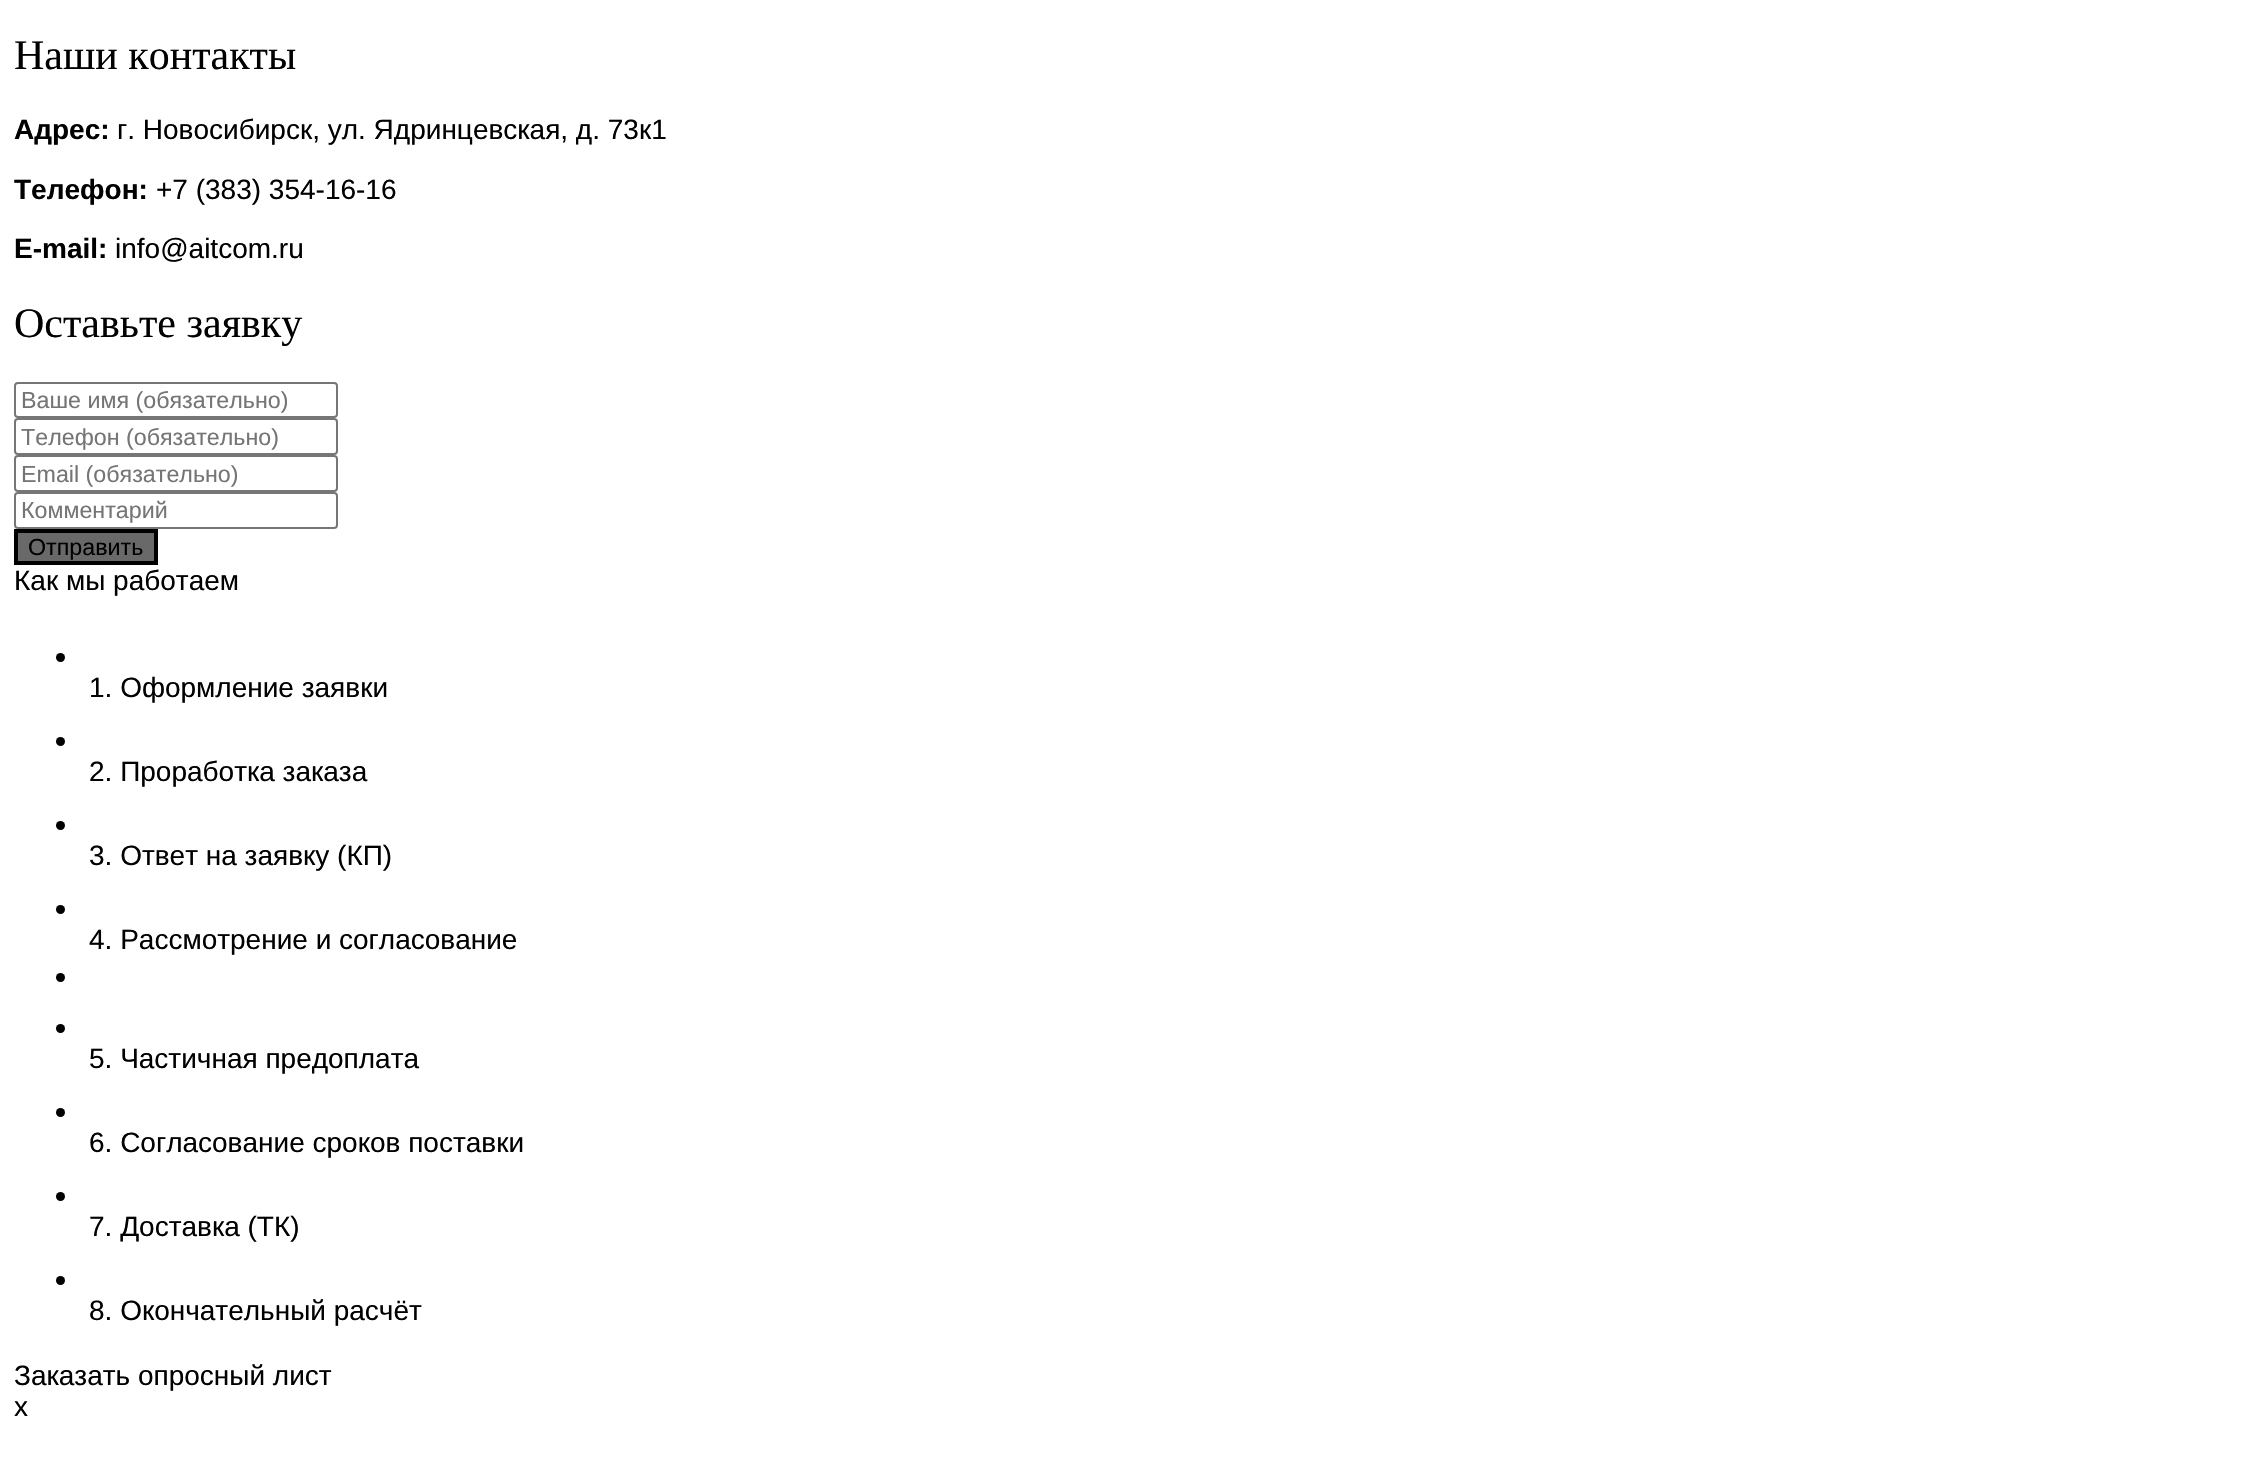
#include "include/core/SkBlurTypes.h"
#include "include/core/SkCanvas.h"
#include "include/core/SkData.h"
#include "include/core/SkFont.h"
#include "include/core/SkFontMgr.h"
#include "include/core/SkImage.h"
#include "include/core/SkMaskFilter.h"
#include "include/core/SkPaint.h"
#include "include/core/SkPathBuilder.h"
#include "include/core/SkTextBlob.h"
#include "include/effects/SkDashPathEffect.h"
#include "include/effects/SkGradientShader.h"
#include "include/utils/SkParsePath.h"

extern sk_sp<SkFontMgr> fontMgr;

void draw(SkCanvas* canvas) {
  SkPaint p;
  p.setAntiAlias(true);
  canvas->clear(SK_ColorWHITE);
  p.setStyle(SkPaint::kStroke_Style);
  p.setStrokeWidth(2);
  p.setColor(SkColorSetRGB(118, 118, 118));
  canvas->drawRoundRect(SkRect::MakeLTRB(15, 383, 337, 417), 3, 3, p);
  canvas->drawRoundRect(SkRect::MakeLTRB(15, 419, 337, 454), 3, 3, p);
  canvas->drawRoundRect(SkRect::MakeLTRB(15, 456, 337, 491), 3, 3, p);
  canvas->drawRoundRect(SkRect::MakeLTRB(15, 493, 337, 528), 3, 3, p);
  p.setStyle(SkPaint::kFill_Style);
  p.setColor(SkColorSetRGB(105, 105, 105));
  canvas->drawRect(SkRect::MakeLTRB(16, 531, 156, 563), p);
  p.setStyle(SkPaint::kStroke_Style);
  p.setStrokeWidth(4);
  p.setColor(SK_ColorBLACK);
  canvas->drawRect(SkRect::MakeLTRB(16, 531, 156, 563), p);
  p.setStyle(SkPaint::kFill_Style);
  canvas->drawCircle(60.5f, 657.5f, 4.5f, p);
  canvas->drawCircle(60.5f, 741.5f, 4.5f, p);
  canvas->drawCircle(60.5f, 825.5f, 4.5f, p);
  canvas->drawCircle(60.5f, 909.5f, 4.5f, p);
  canvas->drawCircle(60.5f, 977.5f, 4.5f, p);
  canvas->drawCircle(60.5f, 1028.5f, 4.5f, p);
  canvas->drawCircle(60.5f, 1112.5f, 4.5f, p);
  canvas->drawCircle(60.5f, 1196.5f, 4.5f, p);
  canvas->drawCircle(60.5f, 1280.5f, 4.5f, p);
  SkFont font1(fontMgr->matchFamilyStyle("Liberation Serif", SkFontStyle::Normal()), 42);
  font1.setSubpixel(true);
  canvas->drawString("Наши контакты", 14, 69, font1, p);
  SkFont font2(fontMgr->matchFamilyStyle("Liberation Sans", SkFontStyle::Bold()), 28);
  font2.setSubpixel(true);
  canvas->drawString("Адрес:", 14, 139, font2, p);
  SkFont font3(fontMgr->matchFamilyStyle("Liberation Sans", SkFontStyle::Normal()), 28);
  font3.setSubpixel(true);
  canvas->drawString("г. Новосибирск, ул. Ядринцевская, д. 73к1", 117, 139, font3, p);
  canvas->drawString("Телефон:", 14, 199, font2, p);
  canvas->drawString("+7 (383) 354-16-16", 156, 199, font3, p);
  canvas->drawString("E-mail:", 14, 258, font2, p);
  canvas->drawString("info@aitcom.ru", 115, 258, font3, p);
  canvas->drawString("Оставьте заявку", 14, 337, font1, p);
  SkFont font4(fontMgr->matchFamilyStyle("Liberation Sans", SkFontStyle::Normal()), 23.25f);
  font4.setSubpixel(true);
  p.setColor(SkColorSetRGB(117, 117, 117));
  canvas->drawString("Ваше имя (обязательно)", 21, 408, font4, p);
  canvas->drawString("Телефон (обязательно)", 21, 445, font4, p);
  canvas->drawString("Email (обязательно)", 21, 482, font4, p);
  canvas->drawString("Комментарий", 21, 518, font4, p);
  p.setColor(SK_ColorBLACK);
  canvas->drawString("Отправить", 28, 555, font4, p);
  canvas->drawString("Как мы работаем", 14, 590, font3, p);
  canvas->drawString("1. Оформление заявки", 89, 697, font3, p);
  canvas->drawString("2. Проработка заказа", 89, 781, font3, p);
  canvas->drawString("3. Ответ на заявку (КП)", 89, 865, font3, p);
  canvas->drawString("4. Рассмотрение и согласование", 89, 949, font3, p);
  canvas->drawString("5. Частичная предоплата", 89, 1068, font3, p);
  canvas->drawString("6. Согласование сроков поставки", 89, 1152, font3, p);
  canvas->drawString("7. Доставка (ТК)", 89, 1236, font3, p);
  canvas->drawString("8. Окончательный расчёт", 89, 1320, font3, p);
  canvas->drawString("Заказать опросный лист", 14, 1385, font3, p);
  canvas->drawString("x", 14, 1416, font3, p);
}
